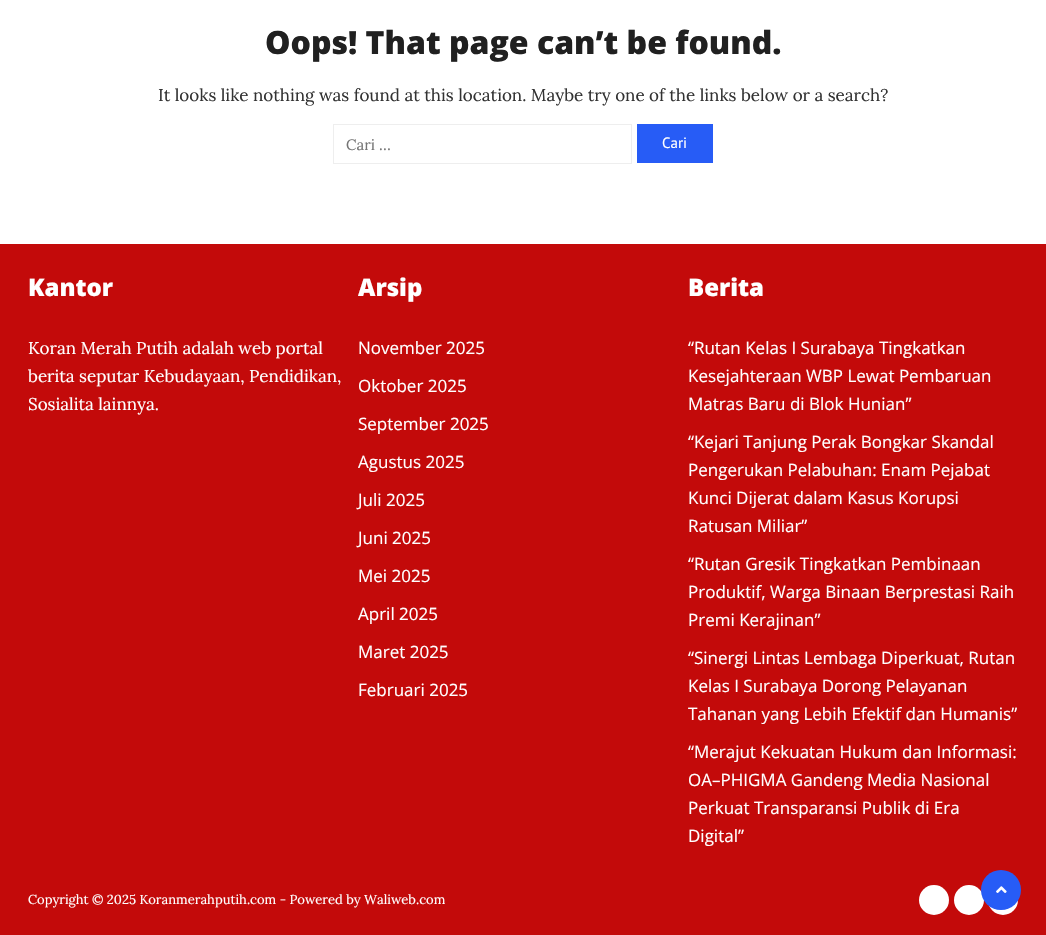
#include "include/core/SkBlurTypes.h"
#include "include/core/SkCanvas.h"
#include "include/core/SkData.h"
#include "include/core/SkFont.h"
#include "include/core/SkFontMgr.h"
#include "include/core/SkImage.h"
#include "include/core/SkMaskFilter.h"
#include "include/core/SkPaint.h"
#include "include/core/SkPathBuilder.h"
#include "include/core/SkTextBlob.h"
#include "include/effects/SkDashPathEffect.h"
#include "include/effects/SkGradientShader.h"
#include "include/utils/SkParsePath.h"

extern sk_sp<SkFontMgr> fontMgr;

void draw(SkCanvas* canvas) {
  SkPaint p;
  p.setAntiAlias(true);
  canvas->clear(SK_ColorWHITE);
  p.setStyle(SkPaint::kStroke_Style);
  p.setStrokeWidth(1);
  p.setColor(SkColorSetRGB(238, 238, 238));
  canvas->drawRect(SkRect::MakeLTRB(333.5f, 124.5f, 631.5f, 163.5f), p);
  p.setStyle(SkPaint::kFill_Style);
  p.setColor(SkColorSetRGB(39, 92, 246));
  canvas->drawRect(SkRect::MakeLTRB(637, 124, 713, 163), p);
  p.setColor(SkColorSetRGB(195, 10, 10));
  canvas->drawRect(SkRect::MakeLTRB(0, 244, 1046, 935), p);
  p.setColor(SK_ColorWHITE);
  canvas->drawCircle(934, 900, 15, p);
  canvas->drawCircle(969, 900, 15, p);
  canvas->drawCircle(1003, 900, 15, p);
  p.setColor(SkColorSetRGB(39, 92, 246));
  canvas->drawCircle(1001, 890, 20, p);
  canvas->drawImageRect(SkImages::DeferredFromEncodedData(SkData::MakeFromFileName("images/1.png")), SkRect::MakeLTRB(996, 886, 1007, 893), SkSamplingOptions());
  SkFont font1(fontMgr->matchFamilyStyle("Open Sans", SkFontStyle(800, SkFontStyle::kNormal_Width, SkFontStyle::kUpright_Slant)), 32);
  font1.setSubpixel(true);
  p.setColor(SkColorSetRGB(32, 32, 32));
  canvas->drawString("Oops! That page can’t be found.", 265, 54, font1, p);
  SkFont font2(fontMgr->matchFamilyStyle("Lora", SkFontStyle::Normal()), 17);
  font2.setSubpixel(true);
  p.setColor(SkColorSetRGB(51, 51, 51));
  canvas->drawString("It looks like nothing was found at this location. Maybe try one of the links below or a search?", 158, 101, font2, p);
  SkFont font3(fontMgr->matchFamilyStyle("Lora", SkFontStyle::Normal()), 15);
  font3.setSubpixel(true);
  p.setColor(SkColorSetRGB(117, 117, 117));
  canvas->drawString("Cari …", 346, 150, font3, p);
  SkFont font4(fontMgr->matchFamilyStyle("PT Sans", SkFontStyle::Normal()), 15);
  font4.setSubpixel(true);
  p.setColor(SK_ColorWHITE);
  canvas->drawString("Cari", 662, 148, font4, p);
  SkFont font5(fontMgr->matchFamilyStyle("Open Sans", SkFontStyle(800, SkFontStyle::kNormal_Width, SkFontStyle::kUpright_Slant)), 24);
  font5.setSubpixel(true);
  canvas->drawString("Kantor", 28, 296, font5, p);
  canvas->drawString("Koran Merah Putih adalah web portal", 28, 354, font2, p);
  canvas->drawString("berita seputar Kebudayaan, Pendidikan,", 28, 382, font2, p);
  canvas->drawString("Sosialita lainnya.", 28, 410, font2, p);
  canvas->drawString("Arsip", 358, 296, font5, p);
  SkFont font6(fontMgr->matchFamilyStyle("Open Sans", SkFontStyle::Normal()), 17);
  font6.setSubpixel(true);
  canvas->drawString("November 2025", 358, 354, font6, p);
  canvas->drawString("Oktober 2025", 358, 392, font6, p);
  canvas->drawString("September 2025", 358, 430, font6, p);
  canvas->drawString("Agustus 2025", 358, 468, font6, p);
  canvas->drawString("Juli 2025", 358, 506, font6, p);
  canvas->drawString("Juni 2025", 358, 544, font6, p);
  canvas->drawString("Mei 2025", 358, 582, font6, p);
  canvas->drawString("April 2025", 358, 620, font6, p);
  canvas->drawString("Maret 2025", 358, 658, font6, p);
  canvas->drawString("Februari 2025", 358, 696, font6, p);
  canvas->drawString("Berita", 688, 296, font5, p);
  canvas->drawString("“Rutan Kelas I Surabaya Tingkatkan", 688, 354, font6, p);
  canvas->drawString("Kesejahteraan WBP Lewat Pembaruan", 688, 382, font6, p);
  canvas->drawString("Matras Baru di Blok Hunian”", 688, 410, font6, p);
  canvas->drawString("“Kejari Tanjung Perak Bongkar Skandal", 688, 448, font6, p);
  canvas->drawString("Pengerukan Pelabuhan: Enam Pejabat", 688, 476, font6, p);
  canvas->drawString("Kunci Dijerat dalam Kasus Korupsi", 688, 504, font6, p);
  canvas->drawString("Ratusan Miliar”", 688, 532, font6, p);
  canvas->drawString("“Rutan Gresik Tingkatkan Pembinaan", 688, 570, font6, p);
  canvas->drawString("Produktif, Warga Binaan Berprestasi Raih", 688, 598, font6, p);
  canvas->drawString("Premi Kerajinan”", 688, 626, font6, p);
  canvas->drawString("“Sinergi Lintas Lembaga Diperkuat, Rutan", 688, 664, font6, p);
  canvas->drawString("Kelas I Surabaya Dorong Pelayanan", 688, 692, font6, p);
  canvas->drawString("Tahanan yang Lebih Efektif dan Humanis”", 688, 720, font6, p);
  canvas->drawString("“Merajut Kekuatan Hukum dan Informasi:", 688, 758, font6, p);
  canvas->drawString("OA–PHIGMA Gandeng Media Nasional", 688, 786, font6, p);
  canvas->drawString("Perkuat Transparansi Publik di Era", 688, 814, font6, p);
  canvas->drawString("Digital”", 688, 842, font6, p);
  SkFont font7(fontMgr->matchFamilyStyle("Lora", SkFontStyle::Normal()), 13);
  font7.setSubpixel(true);
  canvas->drawString("Copyright © 2025 Koranmerahputih.com - Powered by Waliweb.com", 28, 904, font7, p);
}
